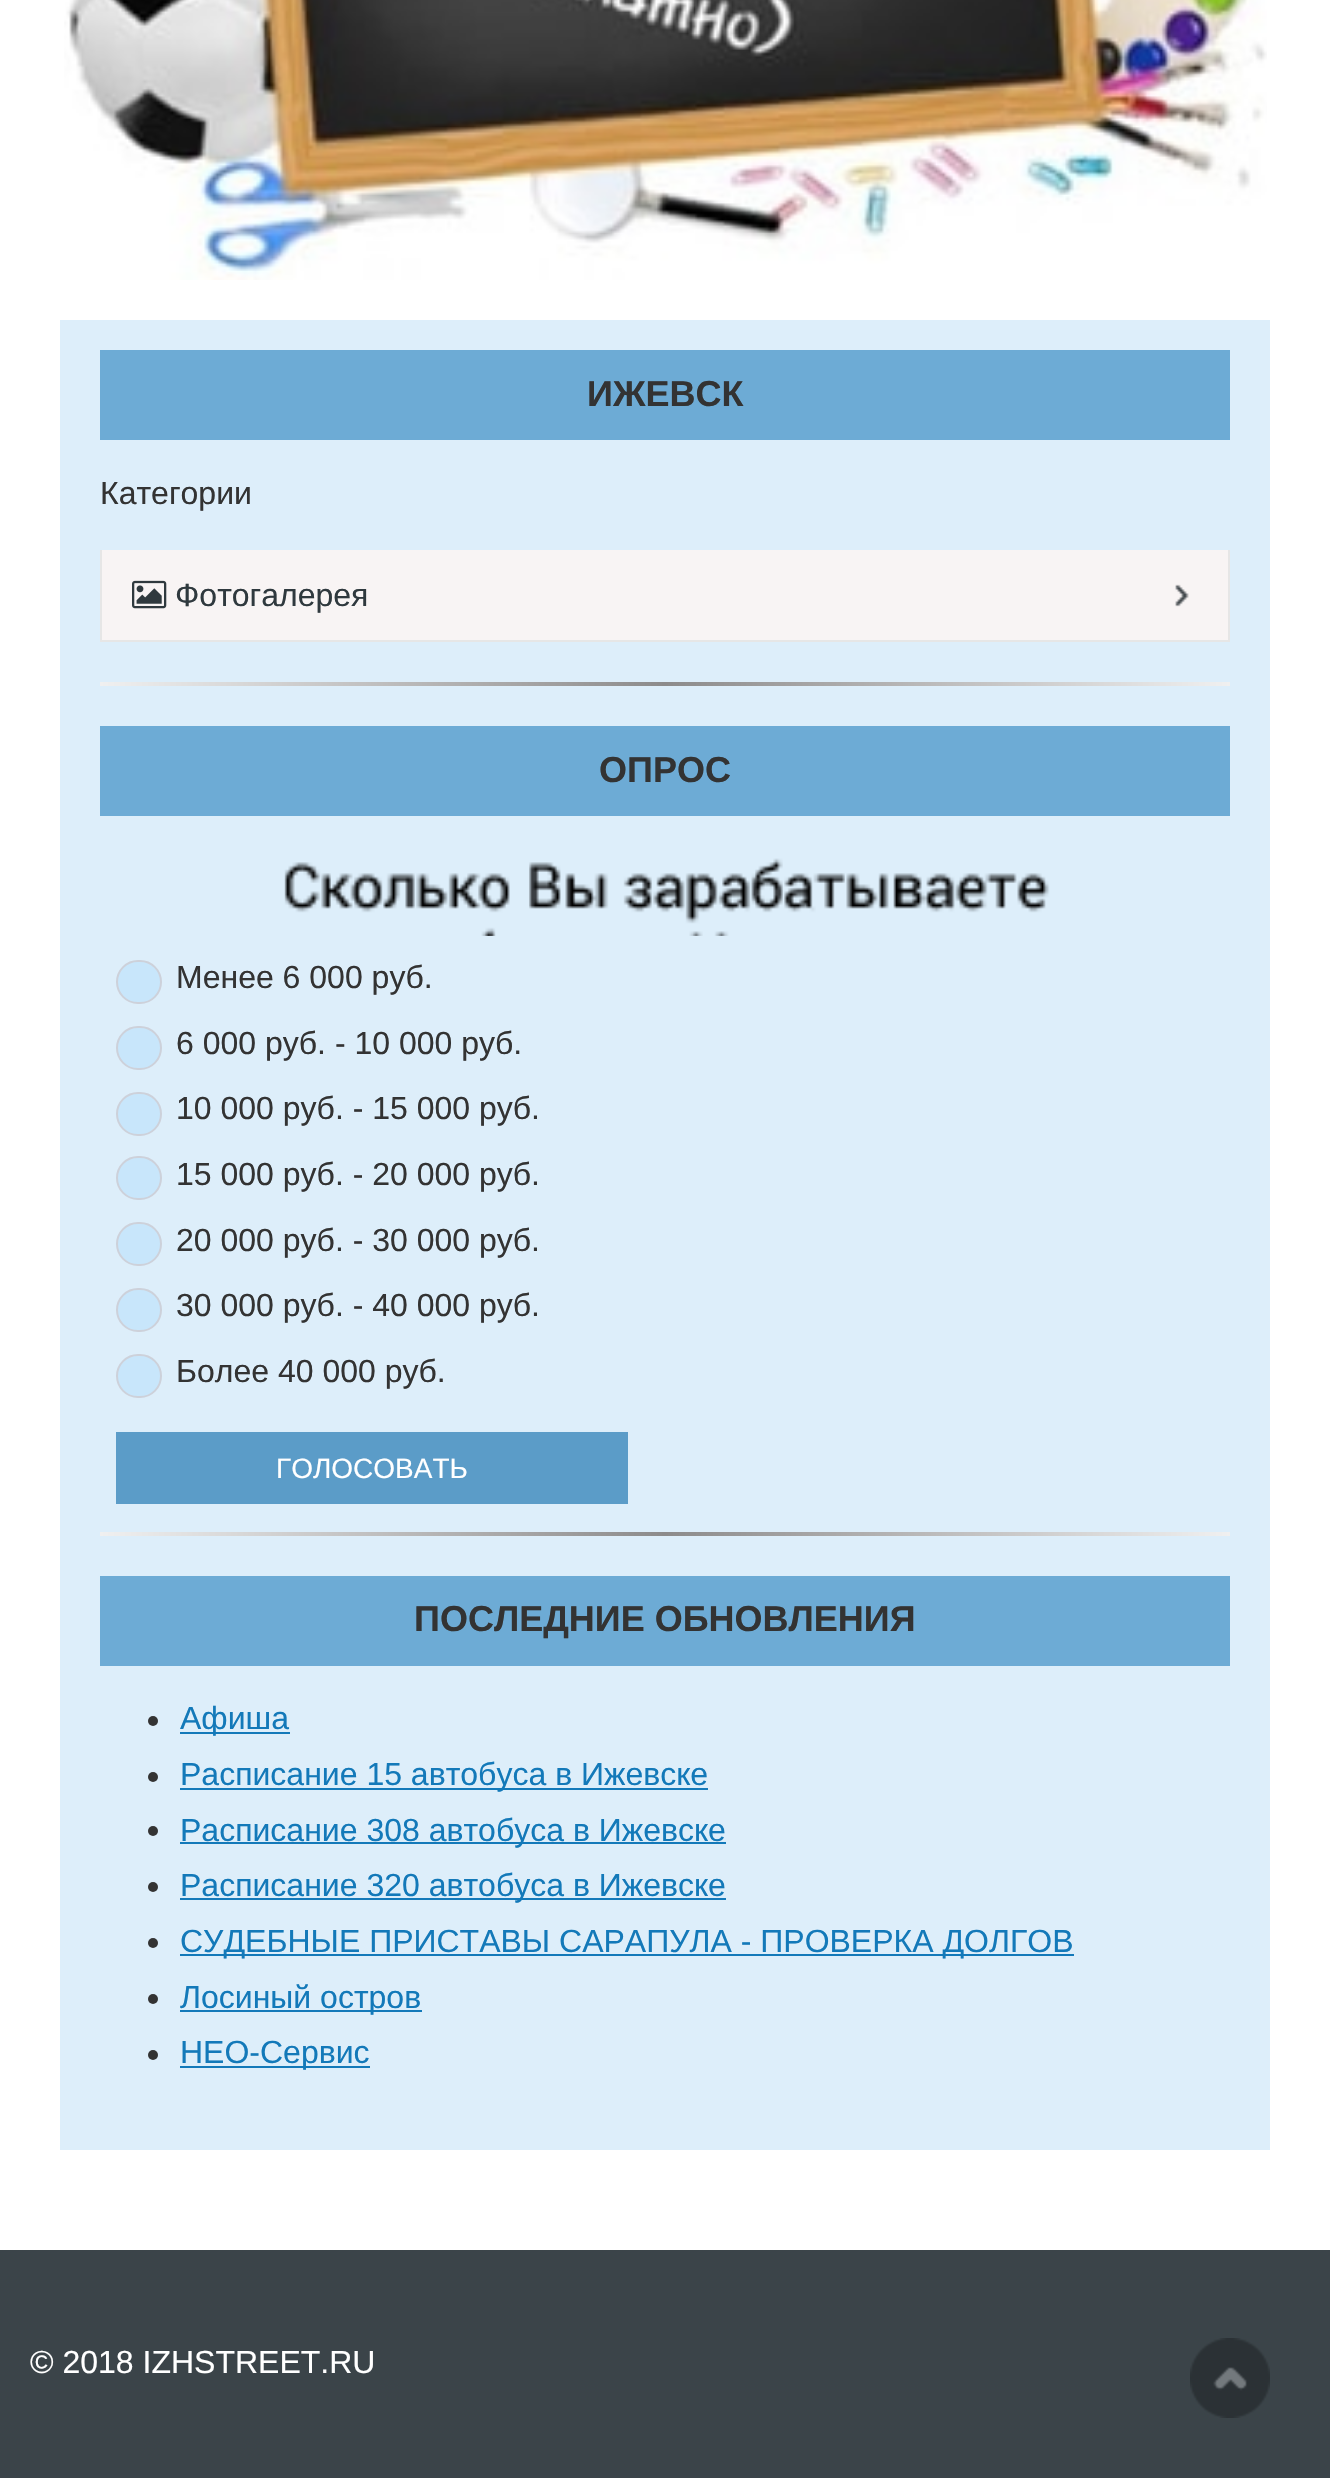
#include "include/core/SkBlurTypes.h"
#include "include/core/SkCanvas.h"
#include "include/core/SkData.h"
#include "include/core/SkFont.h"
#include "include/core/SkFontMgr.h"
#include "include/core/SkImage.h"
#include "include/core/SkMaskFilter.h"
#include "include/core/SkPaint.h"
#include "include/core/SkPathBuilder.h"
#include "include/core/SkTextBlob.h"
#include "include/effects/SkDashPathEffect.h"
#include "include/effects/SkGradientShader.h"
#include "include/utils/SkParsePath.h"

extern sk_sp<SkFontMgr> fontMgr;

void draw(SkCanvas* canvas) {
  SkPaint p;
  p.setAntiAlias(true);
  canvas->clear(SK_ColorWHITE);
  canvas->drawImageRect(SkImages::DeferredFromEncodedData(SkData::MakeFromFileName("images/1.png")), SkRect::MakeLTRB(64, 0, 1267, 280), SkSamplingOptions());
  p.setColor(SkColorSetRGB(221, 238, 250));
  canvas->drawRect(SkRect::MakeLTRB(60, 320, 1270, 2150), p);
  p.setColor(SkColorSetRGB(109, 171, 213));
  canvas->drawRect(SkRect::MakeLTRB(100, 350, 1230, 440), p);
  p.setColor(SkColorSetRGB(248, 244, 244));
  canvas->drawRect(SkRect::MakeLTRB(102, 550, 1228, 640), p);
  canvas->drawImageRect(SkImages::DeferredFromEncodedData(SkData::MakeFromFileName("images/2.png")), SkRect::MakeLTRB(1175, 584, 1189, 607), SkSamplingOptions());
  p.setColor(SkColorSetRGB(230, 230, 230));
  canvas->drawRect(SkRect::MakeLTRB(1228, 550, 1230, 642), p);
  canvas->drawRect(SkRect::MakeLTRB(100, 640, 1230, 642), p);
  canvas->drawRect(SkRect::MakeLTRB(100, 550, 102, 642), p);
  canvas->drawImageRect(SkImages::DeferredFromEncodedData(SkData::MakeFromFileName("images/3.png")), SkRect::MakeLTRB(132, 580, 167, 609), SkSamplingOptions());
  {
    const SkColor colors[] = {SkColorSetRGB(240, 240, 240), SkColorSetRGB(140, 139, 139), SkColorSetRGB(240, 240, 240)};
    const float stops[] = {0, 0.5f, 1};
    const SkPoint ends[] = {{100, 684}, {1230, 684}};
    p.setShader(SkGradientShader::MakeLinear(ends, colors, stops, 3, SkTileMode::kClamp));
    p.setAlpha(255);
  }
  canvas->drawRect(SkRect::MakeLTRB(100, 682, 1230, 686), p);
  p.setShader(nullptr);
  p.setColor(SkColorSetRGB(109, 171, 213));
  canvas->drawRect(SkRect::MakeLTRB(100, 726, 1230, 816), p);
  canvas->drawImageRect(SkImages::DeferredFromEncodedData(SkData::MakeFromFileName("images/4.png")), SkRect::MakeLTRB(284, 858, 1050, 936), SkSamplingOptions());
  p.setColor(SkColorSetRGB(200, 230, 251));
  canvas->drawRoundRect(SkRect::MakeLTRB(117, 961, 161, 1003), 21, 21, p);
  p.setStyle(SkPaint::kStroke_Style);
  p.setStrokeWidth(2);
  p.setColor(SkColorSetRGB(205, 209, 218));
  canvas->drawRoundRect(SkRect::MakeLTRB(117, 961, 161, 1003), 21, 21, p);
  p.setStyle(SkPaint::kFill_Style);
  p.setColor(SkColorSetRGB(200, 230, 251));
  canvas->drawRoundRect(SkRect::MakeLTRB(117, 1027, 161, 1069), 21, 21, p);
  p.setStyle(SkPaint::kStroke_Style);
  p.setColor(SkColorSetRGB(205, 209, 218));
  canvas->drawRoundRect(SkRect::MakeLTRB(117, 1027, 161, 1069), 21, 21, p);
  p.setStyle(SkPaint::kFill_Style);
  p.setColor(SkColorSetRGB(200, 230, 251));
  canvas->drawRoundRect(SkRect::MakeLTRB(117, 1093, 161, 1135), 21, 21, p);
  p.setStyle(SkPaint::kStroke_Style);
  p.setColor(SkColorSetRGB(205, 209, 218));
  canvas->drawRoundRect(SkRect::MakeLTRB(117, 1093, 161, 1135), 21, 21, p);
  p.setStyle(SkPaint::kFill_Style);
  p.setColor(SkColorSetRGB(200, 230, 251));
  canvas->drawRoundRect(SkRect::MakeLTRB(117, 1157, 161, 1199), 21, 21, p);
  p.setStyle(SkPaint::kStroke_Style);
  p.setColor(SkColorSetRGB(205, 209, 218));
  canvas->drawRoundRect(SkRect::MakeLTRB(117, 1157, 161, 1199), 21, 21, p);
  p.setStyle(SkPaint::kFill_Style);
  p.setColor(SkColorSetRGB(200, 230, 251));
  canvas->drawRoundRect(SkRect::MakeLTRB(117, 1223, 161, 1265), 21, 21, p);
  p.setStyle(SkPaint::kStroke_Style);
  p.setColor(SkColorSetRGB(205, 209, 218));
  canvas->drawRoundRect(SkRect::MakeLTRB(117, 1223, 161, 1265), 21, 21, p);
  p.setStyle(SkPaint::kFill_Style);
  p.setColor(SkColorSetRGB(200, 230, 251));
  canvas->drawRoundRect(SkRect::MakeLTRB(117, 1289, 161, 1331), 21, 21, p);
  p.setStyle(SkPaint::kStroke_Style);
  p.setColor(SkColorSetRGB(205, 209, 218));
  canvas->drawRoundRect(SkRect::MakeLTRB(117, 1289, 161, 1331), 21, 21, p);
  p.setStyle(SkPaint::kFill_Style);
  p.setColor(SkColorSetRGB(200, 230, 251));
  canvas->drawRoundRect(SkRect::MakeLTRB(117, 1355, 161, 1397), 21, 21, p);
  p.setStyle(SkPaint::kStroke_Style);
  p.setColor(SkColorSetRGB(205, 209, 218));
  canvas->drawRoundRect(SkRect::MakeLTRB(117, 1355, 161, 1397), 21, 21, p);
  p.setStyle(SkPaint::kFill_Style);
  p.setColor(SkColorSetRGB(91, 156, 200));
  canvas->drawRect(SkRect::MakeLTRB(116, 1432, 628, 1504), p);
  {
    const SkColor colors[] = {SkColorSetRGB(240, 240, 240), SkColorSetRGB(140, 139, 139), SkColorSetRGB(240, 240, 240)};
    const float stops[] = {0, 0.5f, 1};
    const SkPoint ends[] = {{100, 1534}, {1230, 1534}};
    p.setShader(SkGradientShader::MakeLinear(ends, colors, stops, 3, SkTileMode::kClamp));
    p.setAlpha(255);
  }
  canvas->drawRect(SkRect::MakeLTRB(100, 1532, 1230, 1536), p);
  p.setShader(nullptr);
  p.setColor(SkColorSetRGB(109, 171, 213));
  canvas->drawRect(SkRect::MakeLTRB(100, 1576, 1230, 1666), p);
  p.setColor(SkColorSetRGB(51, 51, 51));
  canvas->drawCircle(153, 1721, 5, p);
  p.setColor(SkColorSetRGB(19, 121, 185));
  canvas->drawRect(SkRect::MakeLTRB(180, 1732, 290, 1734), p);
  p.setColor(SkColorSetRGB(51, 51, 51));
  canvas->drawCircle(153, 1777, 5, p);
  p.setColor(SkColorSetRGB(19, 121, 185));
  canvas->drawRect(SkRect::MakeLTRB(180, 1788, 708, 1790), p);
  p.setColor(SkColorSetRGB(51, 51, 51));
  canvas->drawCircle(153, 1831, 5, p);
  p.setColor(SkColorSetRGB(19, 121, 185));
  canvas->drawRect(SkRect::MakeLTRB(180, 1842, 726, 1844), p);
  p.setColor(SkColorSetRGB(51, 51, 51));
  canvas->drawCircle(153, 1887, 5, p);
  p.setColor(SkColorSetRGB(19, 121, 185));
  canvas->drawRect(SkRect::MakeLTRB(180, 1898, 726, 1900), p);
  p.setColor(SkColorSetRGB(51, 51, 51));
  canvas->drawCircle(153, 1943, 5, p);
  p.setColor(SkColorSetRGB(19, 121, 185));
  canvas->drawRect(SkRect::MakeLTRB(180, 1954, 1074, 1956), p);
  p.setColor(SkColorSetRGB(51, 51, 51));
  canvas->drawCircle(153, 1999, 5, p);
  p.setColor(SkColorSetRGB(19, 121, 185));
  canvas->drawRect(SkRect::MakeLTRB(180, 2010, 422, 2012), p);
  p.setColor(SkColorSetRGB(51, 51, 51));
  canvas->drawCircle(153, 2055, 5, p);
  p.setColor(SkColorSetRGB(19, 121, 185));
  canvas->drawRect(SkRect::MakeLTRB(180, 2066, 370, 2068), p);
  p.setColor(SkColorSetRGB(59, 68, 73));
  canvas->drawRect(SkRect::MakeLTRB(0, 2250, 1330, 2478), p);
  canvas->drawImageRect(SkImages::DeferredFromEncodedData(SkData::MakeFromFileName("images/5.png")), SkRect::MakeLTRB(1190, 2338, 1270, 2418), SkSamplingOptions());
  SkFont font1(fontMgr->matchFamilyStyle("Liberation Sans", SkFontStyle::Bold()), 36);
  font1.setSubpixel(true);
  p.setColor(SkColorSetRGB(51, 51, 51));
  canvas->drawString("ИЖЕВСК", 587, 406, font1, p);
  SkFont font2(fontMgr->matchFamilyStyle("Liberation Sans", SkFontStyle::Normal()), 32);
  font2.setSubpixel(true);
  canvas->drawString("Категории", 100, 504, font2, p);
  p.setColor(SkColorSetRGB(47, 57, 62));
  canvas->drawString("Фотогалерея", 175, 606, font2, p);
  p.setColor(SkColorSetRGB(51, 51, 51));
  canvas->drawString("ОПРОС", 599, 782, font1, p);
  canvas->drawString("Менее 6 000 руб.", 176, 988, font2, p);
  canvas->drawString("6 000 руб. - 10 000 руб.", 176, 1054, font2, p);
  canvas->drawString("10 000 руб. - 15 000 руб.", 176, 1119, font2, p);
  canvas->drawString("15 000 руб. - 20 000 руб.", 176, 1185, font2, p);
  canvas->drawString("20 000 руб. - 30 000 руб.", 176, 1251, font2, p);
  canvas->drawString("30 000 руб. - 40 000 руб.", 176, 1316, font2, p);
  canvas->drawString("Более 40 000 руб.", 176, 1382, font2, p);
  SkFont font3(fontMgr->matchFamilyStyle("Liberation Sans", SkFontStyle::Normal()), 28);
  font3.setSubpixel(true);
  p.setColor(SK_ColorWHITE);
  canvas->drawString("ГОЛОСОВАТЬ", 276, 1478, font3, p);
  p.setColor(SkColorSetRGB(51, 51, 51));
  canvas->drawString("ПОСЛЕДНИЕ ОБНОВЛЕНИЯ", 414, 1631, font1, p);
  p.setColor(SkColorSetRGB(19, 121, 185));
  canvas->drawString("Афиша", 180, 1729, font2, p);
  canvas->drawString("Расписание 15 автобуса в Ижевске", 180, 1785, font2, p);
  canvas->drawString("Расписание 308 автобуса в Ижевске", 180, 1841, font2, p);
  canvas->drawString("Расписание 320 автобуса в Ижевске", 180, 1896, font2, p);
  canvas->drawString("СУДЕБНЫЕ ПРИСТАВЫ САРАПУЛА - ПРОВЕРКА ДОЛГОВ", 180, 1952, font2, p);
  canvas->drawString("Лосиный остров", 180, 2008, font2, p);
  canvas->drawString("НЕО-Сервис", 180, 2063, font2, p);
  p.setColor(SK_ColorWHITE);
  canvas->drawString("© 2018 IZHSTREET.RU", 30, 2373, font2, p);
}
